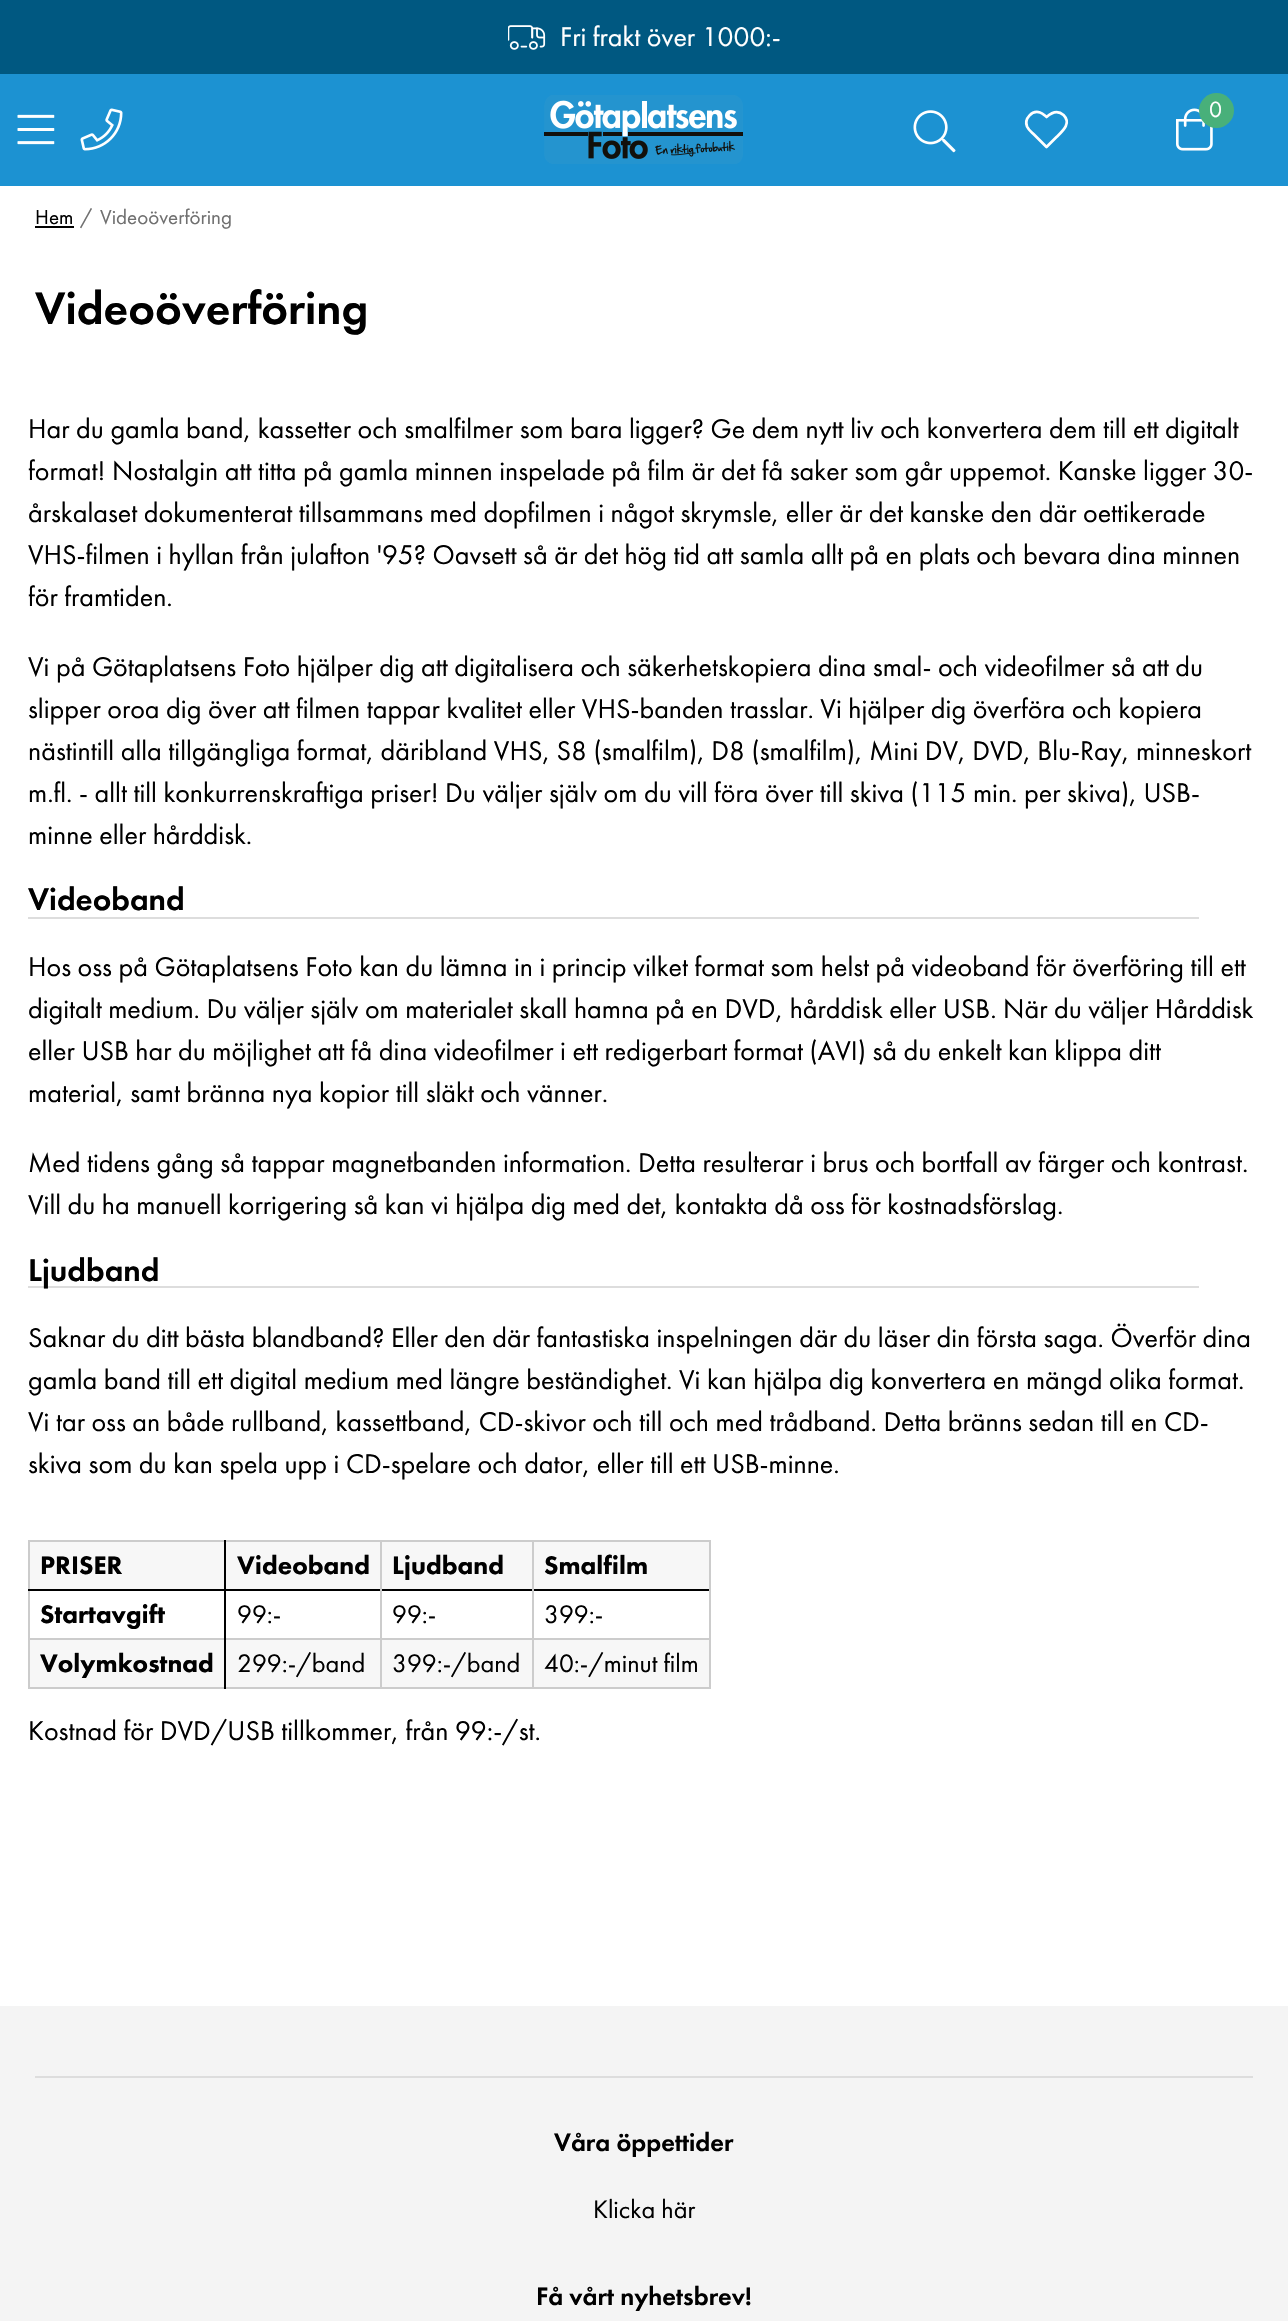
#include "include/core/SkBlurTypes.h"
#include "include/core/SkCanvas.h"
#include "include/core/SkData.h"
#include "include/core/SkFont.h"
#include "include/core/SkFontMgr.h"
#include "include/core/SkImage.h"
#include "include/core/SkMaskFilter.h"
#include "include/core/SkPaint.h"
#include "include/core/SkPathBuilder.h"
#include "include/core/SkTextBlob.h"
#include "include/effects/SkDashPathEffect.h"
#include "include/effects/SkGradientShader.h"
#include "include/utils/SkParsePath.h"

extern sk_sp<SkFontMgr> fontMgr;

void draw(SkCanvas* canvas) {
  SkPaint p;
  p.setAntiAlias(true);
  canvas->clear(SK_ColorWHITE);
  p.setColor(SkColorSetRGB(28, 146, 210));
  canvas->drawRect(SkRect::MakeLTRB(0, 74, 1288, 186), p);
  p.setColor(SkColorSetRGB(0, 88, 129));
  canvas->drawRect(SkRect::MakeLTRB(0, 0, 1288, 74), p);
  canvas->drawImageRect(SkImages::DeferredFromEncodedData(SkData::MakeFromFileName("images/1.png")), SkRect::MakeLTRB(508, 25, 546, 50), SkSamplingOptions());
  canvas->drawImageRect(SkImages::DeferredFromEncodedData(SkData::MakeFromFileName("images/2.png")), SkRect::MakeLTRB(17, 114, 55, 145), SkSamplingOptions());
  canvas->drawImageRect(SkImages::DeferredFromEncodedData(SkData::MakeFromFileName("images/3.png")), SkRect::MakeLTRB(80, 108, 123, 151), SkSamplingOptions());
  canvas->drawImageRect(SkImages::DeferredFromEncodedData(SkData::MakeFromFileName("images/4.png")), SkRect::MakeLTRB(544, 95, 743, 164), SkSamplingOptions());
  canvas->drawImageRect(SkImages::DeferredFromEncodedData(SkData::MakeFromFileName("images/5.png")), SkRect::MakeLTRB(913, 110, 956, 153), SkSamplingOptions());
  p.setStyle(SkPaint::kStroke_Style);
  p.setStrokeWidth(2.7f);
  p.setStrokeCap(SkPaint::kRound_Cap);
  p.setStrokeJoin(SkPaint::kRound_Join);
  p.setColor(SK_ColorWHITE);
  canvas->drawPath(SkPathBuilder().moveTo(1063.5f, 115).cubicTo(1057.5f, 109.5f, 1051.5f, 112.5f, 1046.5f, 117).cubicTo(1044.5f, 115.5f, 1043, 113.5f, 1040, 112.5f).cubicTo(1032, 110, 1024, 118.5f, 1027, 126.5f).cubicTo(1028.5f, 130, 1031.5f, 132, 1034, 134.5f).lineTo(1046.5f, 147).lineTo(1056.5f, 137).cubicTo(1062, 131.5f, 1072, 123.5f, 1063.5f, 115).close().detach(), p);
  canvas->drawImageRect(SkImages::DeferredFromEncodedData(SkData::MakeFromFileName("images/6.png")), SkRect::MakeLTRB(1176, 108, 1213, 151), SkSamplingOptions());
  p.setStyle(SkPaint::kFill_Style);
  p.setColor(SkColorSetRGB(72, 176, 122));
  canvas->drawCircle(1216.5f, 110.5f, 17.5f, p);
  p.setColor(SK_ColorBLACK);
  canvas->drawRect(SkRect::MakeLTRB(35, 226, 74, 228), p);
  p.setColor(SkColorSetRGB(221, 221, 221));
  canvas->drawRect(SkRect::MakeLTRB(28, 917, 1199, 919), p);
  canvas->drawRect(SkRect::MakeLTRB(28, 1286, 1199, 1288), p);
  p.setColor(SkColorSetRGB(204, 204, 204));
  canvas->drawRect(SkRect::MakeLTRB(28, 1540, 711, 1542), p);
  canvas->drawRect(SkRect::MakeLTRB(709, 1540, 711, 1689), p);
  canvas->drawRect(SkRect::MakeLTRB(28, 1687, 711, 1689), p);
  canvas->drawRect(SkRect::MakeLTRB(28, 1540, 30, 1689), p);
  p.setColor(SkColorSetRGB(247, 247, 247));
  canvas->drawRect(SkRect::MakeLTRB(30, 1542, 709, 1589), p);
  p.setColor(SK_ColorBLACK);
  canvas->drawRect(SkRect::MakeLTRB(28, 1589, 711, 1591), p);
  p.setColor(SkColorSetRGB(204, 204, 204));
  canvas->drawRect(SkRect::MakeLTRB(28, 1638, 711, 1640), p);
  canvas->drawRect(SkRect::MakeLTRB(709, 1589, 711, 1591), p);
  p.setColor(SkColorSetRGB(247, 247, 247));
  canvas->drawRect(SkRect::MakeLTRB(30, 1640, 709, 1687), p);
  p.setColor(SK_ColorBLACK);
  canvas->drawRect(SkRect::MakeLTRB(224, 1540, 226, 1689), p);
  p.setColor(SkColorSetRGB(204, 204, 204));
  canvas->drawRect(SkRect::MakeLTRB(380, 1540, 382, 1689), p);
  canvas->drawRect(SkRect::MakeLTRB(532, 1540, 534, 1689), p);
  p.setColor(SkColorSetRGB(244, 244, 244));
  canvas->drawRect(SkRect::MakeLTRB(0, 2006, 1288, 2321), p);
  p.setColor(SkColorSetRGB(221, 221, 221));
  canvas->drawRect(SkRect::MakeLTRB(35, 2076, 1253, 2078), p);
  SkFont font1(fontMgr->matchFamilyStyle("Futura PT", SkFontStyle::Normal()), 28);
  font1.setSubpixel(true);
  p.setColor(SK_ColorWHITE);
  canvas->drawString("Fri frakt över 1000:-", 560, 46, font1, p);
  SkFont font2(fontMgr->matchFamilyStyle("Futura PT", SkFontStyle::Normal()), 23);
  font2.setSubpixel(true);
  canvas->drawString("0", 1209, 117, font2, p);
  SkFont font3(fontMgr->matchFamilyStyle("Futura PT", SkFontStyle::Normal()), 21);
  font3.setSubpixel(true);
  p.setColor(SK_ColorBLACK);
  canvas->drawString("Hem", 35, 224, font3, p);
  p.setColor(SkColorSetRGB(112, 112, 112));
  canvas->drawString("/", 80, 224, font3, p);
  canvas->drawString("Videoöverföring", 100, 224, font3, p);
  SkFont font4(fontMgr->matchFamilyStyle("Futura PT", SkFontStyle(500, SkFontStyle::kNormal_Width, SkFontStyle::kUpright_Slant)), 47.25f);
  font4.setSubpixel(true);
  p.setColor(SK_ColorBLACK);
  canvas->drawString("Videoöverföring", 35, 324, font4, p);
  canvas->drawString("Har du gamla band, kassetter och smalfilmer som bara ligger? Ge dem nytt liv och konvertera dem till ett digitalt", 28, 438, font1, p);
  canvas->drawString("format! Nostalgin att titta på gamla minnen inspelade på film är det få saker som går uppemot. Kanske ligger 30-", 28, 480, font1, p);
  canvas->drawString("årskalaset dokumenterat tillsammans med dopfilmen i något skrymsle, eller är det kanske den där oettikerade", 28, 522, font1, p);
  canvas->drawString("VHS-filmen i hyllan från julafton '95? Oavsett så är det hög tid att samla allt på en plats och bevara dina minnen", 28, 564, font1, p);
  canvas->drawString("för framtiden.", 28, 606, font1, p);
  canvas->drawString("Vi på Götaplatsens Foto hjälper dig att digitalisera och säkerhetskopiera dina smal- och videofilmer så att du", 28, 676, font1, p);
  canvas->drawString("slipper oroa dig över att filmen tappar kvalitet eller VHS-banden trasslar. Vi hjälper dig överföra och kopiera", 28, 718, font1, p);
  canvas->drawString("nästintill alla tillgängliga format, däribland VHS, S8 (smalfilm), D8 (smalfilm), Mini DV, DVD, Blu-Ray, minneskort", 28, 760, font1, p);
  canvas->drawString("m.fl. - allt till konkurrenskraftiga priser! Du väljer själv om du vill föra över till skiva (115 min. per skiva), USB-", 28, 802, font1, p);
  canvas->drawString("minne eller hårddisk.", 28, 844, font1, p);
  SkFont font5(fontMgr->matchFamilyStyle("Futura PT", SkFontStyle(500, SkFontStyle::kNormal_Width, SkFontStyle::kUpright_Slant)), 32.75f);
  font5.setSubpixel(true);
  canvas->drawString("Videoband", 28, 910, font5, p);
  canvas->drawString("Hos oss på Götaplatsens Foto kan du lämna in i princip vilket format som helst på videoband för överföring till ett", 28, 976, font1, p);
  canvas->drawString("digitalt medium. Du väljer själv om materialet skall hamna på en DVD, hårddisk eller USB. När du väljer Hårddisk", 28, 1018, font1, p);
  canvas->drawString("eller USB har du möjlighet att få dina videofilmer i ett redigerbart format (AVI) så du enkelt kan klippa ditt", 28, 1060, font1, p);
  canvas->drawString("material, samt bränna nya kopior till släkt och vänner.", 28, 1102, font1, p);
  canvas->drawString("Med tidens gång så tappar magnetbanden information. Detta resulterar i brus och bortfall av färger och kontrast.", 28, 1172, font1, p);
  canvas->drawString("Vill du ha manuell korrigering så kan vi hjälpa dig med det, kontakta då oss för kostnadsförslag.", 28, 1214, font1, p);
  canvas->drawString("Ljudband", 28, 1281, font5, p);
  canvas->drawString("Saknar du ditt bästa blandband? Eller den där fantastiska inspelningen där du läser din första saga. Överför dina", 28, 1347, font1, p);
  canvas->drawString("gamla band till ett digital medium med längre beständighet. Vi kan hjälpa dig konvertera en mängd olika format.", 28, 1389, font1, p);
  canvas->drawString("Vi tar oss an både rullband, kassettband, CD-skivor och till och med trådband. Detta bränns sedan till en CD-", 28, 1431, font1, p);
  canvas->drawString("skiva som du kan spela upp i CD-spelare och dator, eller till ett USB-minne.", 28, 1473, font1, p);
  SkFont font6(fontMgr->matchFamilyStyle("Futura PT", SkFontStyle(900, SkFontStyle::kNormal_Width, SkFontStyle::kUpright_Slant)), 26.25f);
  font6.setSubpixel(true);
  canvas->drawString("PRISER", 40, 1574, font6, p);
  canvas->drawString("Videoband", 237, 1574, font6, p);
  canvas->drawString("Ljudband", 392, 1574, font6, p);
  canvas->drawString("Smalfilm", 544, 1574, font6, p);
  canvas->drawString("Startavgift", 40, 1623, font6, p);
  SkFont font7(fontMgr->matchFamilyStyle("Futura PT", SkFontStyle::Normal()), 26.25f);
  font7.setSubpixel(true);
  canvas->drawString("99:-", 237, 1623, font7, p);
  canvas->drawString("99:-", 392, 1623, font7, p);
  canvas->drawString("399:-", 544, 1623, font7, p);
  canvas->drawString("Volymkostnad", 40, 1672, font6, p);
  canvas->drawString("299:-/band", 237, 1672, font7, p);
  canvas->drawString("399:-/band", 392, 1672, font7, p);
  canvas->drawString("40:-/minut film", 544, 1672, font7, p);
  canvas->drawString("Kostnad för DVD/USB tillkommer, från 99:-/st.", 28, 1740, font1, p);
  SkFont font8(fontMgr->matchFamilyStyle("Futura PT", SkFontStyle(500, SkFontStyle::kNormal_Width, SkFontStyle::kUpright_Slant)), 26.25f);
  font8.setSubpixel(true);
  canvas->drawString("Våra öppettider", 554, 2151, font8, p);
  canvas->drawString("Klicka här", 593, 2218, font7, p);
  canvas->drawString("Få vårt nyhetsbrev!", 536, 2305, font8, p);
}
